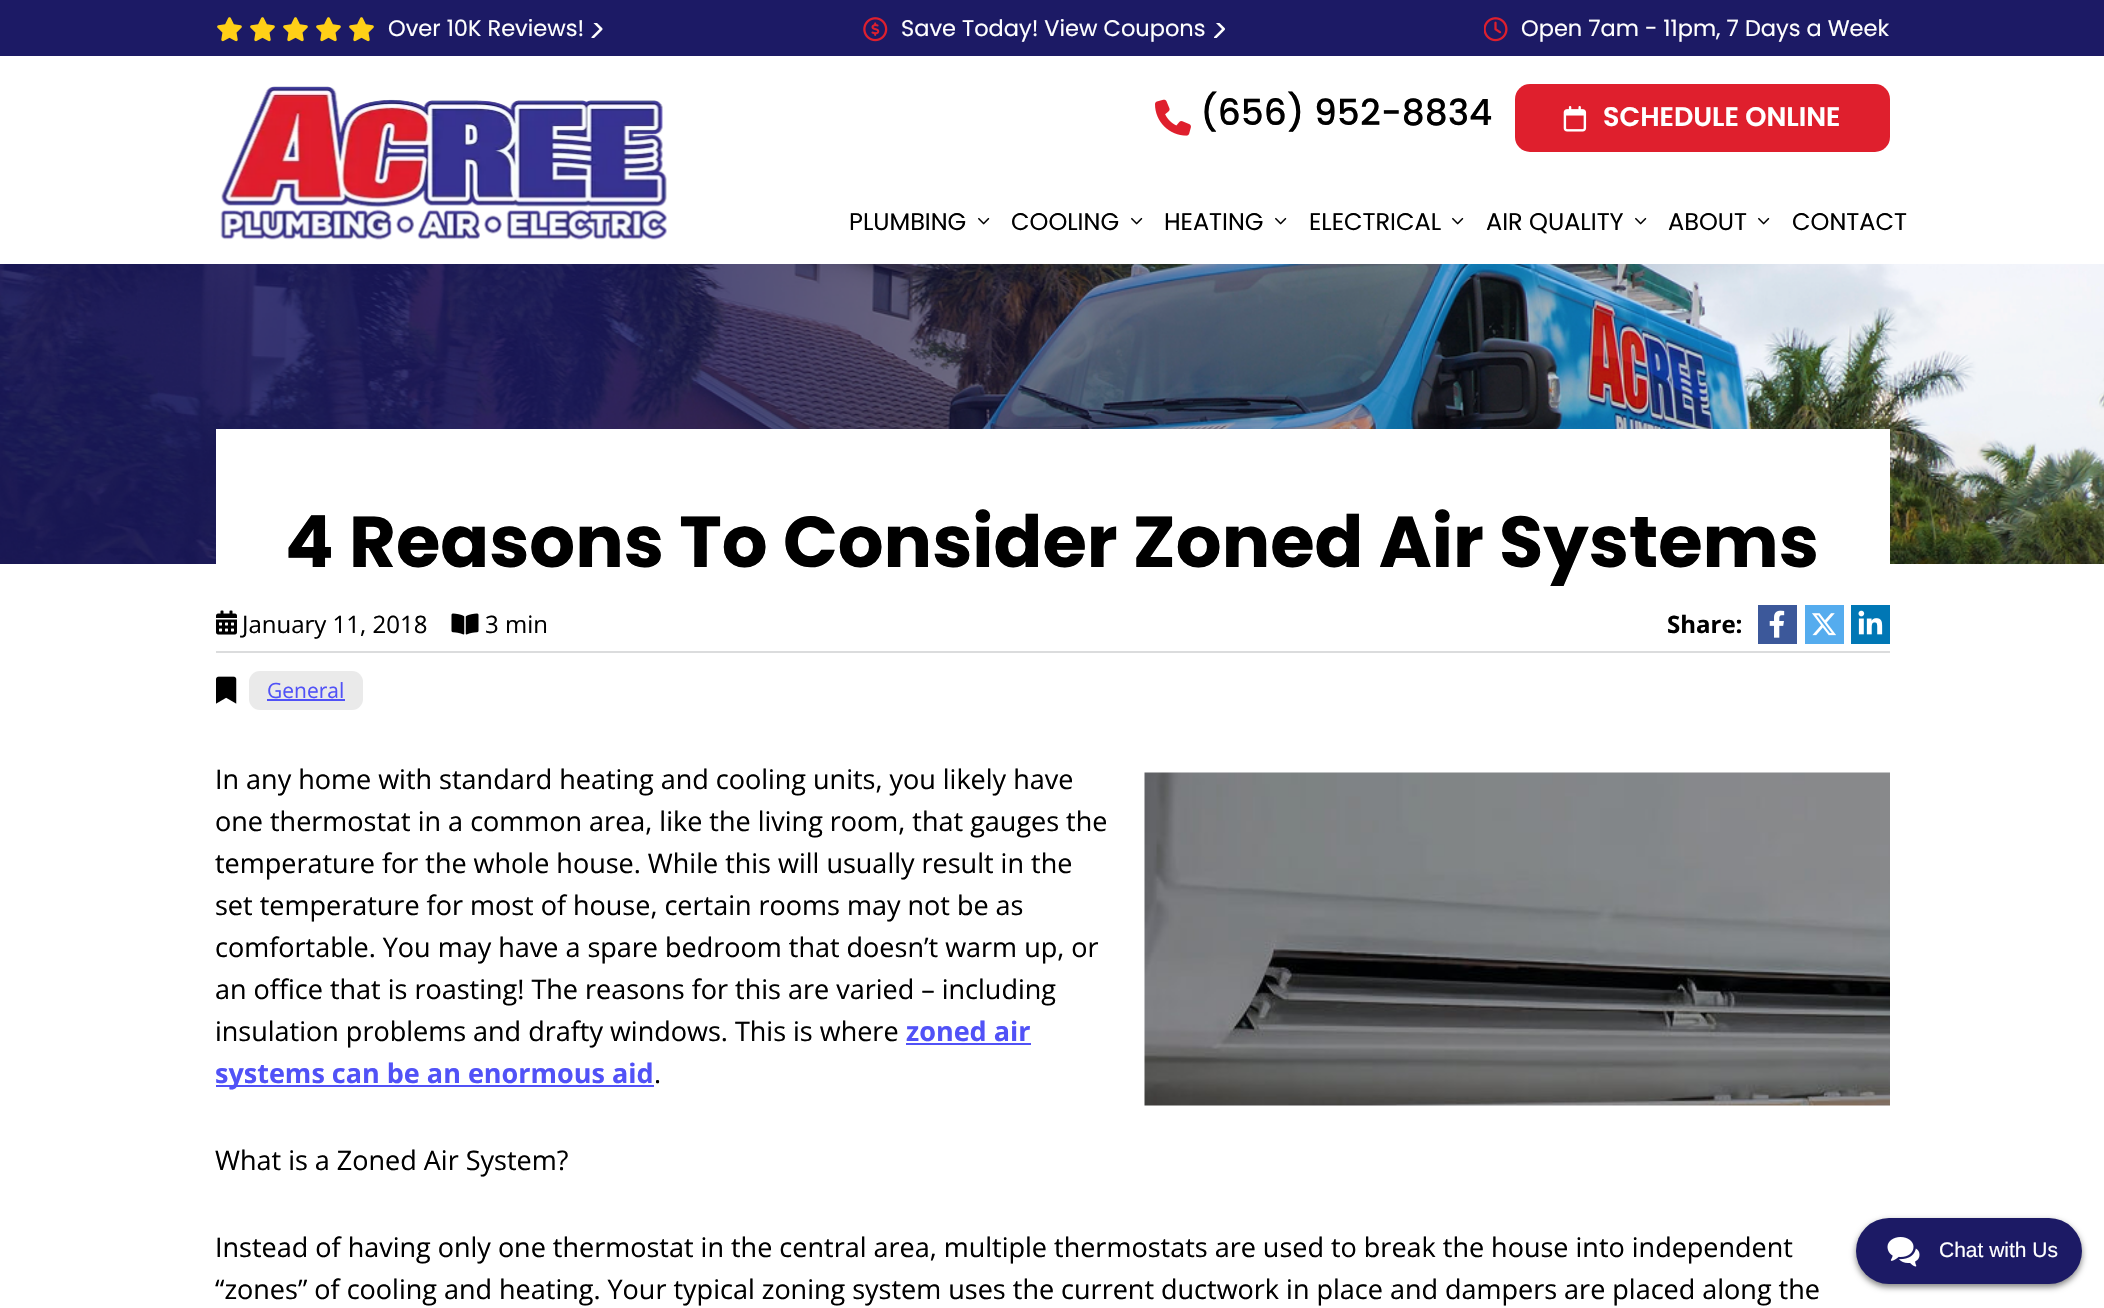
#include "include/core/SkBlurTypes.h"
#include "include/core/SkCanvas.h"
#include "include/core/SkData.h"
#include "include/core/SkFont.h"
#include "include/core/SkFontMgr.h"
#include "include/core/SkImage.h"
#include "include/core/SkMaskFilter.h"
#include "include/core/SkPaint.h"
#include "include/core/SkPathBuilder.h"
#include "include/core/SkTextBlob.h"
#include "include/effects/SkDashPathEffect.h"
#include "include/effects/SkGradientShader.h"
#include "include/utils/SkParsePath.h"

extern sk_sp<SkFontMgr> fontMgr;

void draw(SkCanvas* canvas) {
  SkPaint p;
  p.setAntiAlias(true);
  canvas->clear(SK_ColorWHITE);
  p.setColor(SkColorSetRGB(28, 26, 101));
  canvas->drawRect(SkRect::MakeLTRB(0, 0, 2104, 56), p);
  canvas->drawImageRect(SkImages::DeferredFromEncodedData(SkData::MakeFromFileName("images/1.png")), SkRect::MakeLTRB(217, 17, 242, 42), SkSamplingOptions());
  canvas->drawImageRect(SkImages::DeferredFromEncodedData(SkData::MakeFromFileName("images/1.png")), SkRect::MakeLTRB(250, 17, 275, 42), SkSamplingOptions());
  canvas->drawImageRect(SkImages::DeferredFromEncodedData(SkData::MakeFromFileName("images/1.png")), SkRect::MakeLTRB(283, 17, 308, 42), SkSamplingOptions());
  canvas->drawImageRect(SkImages::DeferredFromEncodedData(SkData::MakeFromFileName("images/1.png")), SkRect::MakeLTRB(316, 17, 341, 42), SkSamplingOptions());
  canvas->drawImageRect(SkImages::DeferredFromEncodedData(SkData::MakeFromFileName("images/1.png")), SkRect::MakeLTRB(349, 17, 374, 42), SkSamplingOptions());
  canvas->drawImageRect(SkImages::DeferredFromEncodedData(SkData::MakeFromFileName("images/2.png")), SkRect::MakeLTRB(591, 23, 603, 38), SkSamplingOptions());
  canvas->drawImageRect(SkImages::DeferredFromEncodedData(SkData::MakeFromFileName("images/3.png")), SkRect::MakeLTRB(863, 17, 888, 42), SkSamplingOptions());
  canvas->drawImageRect(SkImages::DeferredFromEncodedData(SkData::MakeFromFileName("images/4.png")), SkRect::MakeLTRB(1214, 23, 1225, 38), SkSamplingOptions());
  canvas->drawImageRect(SkImages::DeferredFromEncodedData(SkData::MakeFromFileName("images/5.png")), SkRect::MakeLTRB(1484, 17, 1508, 42), SkSamplingOptions());
  canvas->drawImageRect(SkImages::DeferredFromEncodedData(SkData::MakeFromFileName("images/6.png")), SkRect::MakeLTRB(220, 86, 667, 240), SkSamplingOptions());
  canvas->drawImageRect(SkImages::DeferredFromEncodedData(SkData::MakeFromFileName("images/7.png")), SkRect::MakeLTRB(1155, 99, 1191, 136), SkSamplingOptions());
  p.setColor(SkColorSetRGB(223, 31, 45));
  canvas->drawRoundRect(SkRect::MakeLTRB(1515, 84, 1890, 152), 15, 15, p);
  canvas->drawImageRect(SkImages::DeferredFromEncodedData(SkData::MakeFromFileName("images/8.png")), SkRect::MakeLTRB(1563, 106, 1587, 132), SkSamplingOptions());
  canvas->drawImageRect(SkImages::DeferredFromEncodedData(SkData::MakeFromFileName("images/9.png")), SkRect::MakeLTRB(978, 217, 990, 225), SkSamplingOptions());
  canvas->drawImageRect(SkImages::DeferredFromEncodedData(SkData::MakeFromFileName("images/9.png")), SkRect::MakeLTRB(1131, 217, 1143, 225), SkSamplingOptions());
  canvas->drawImageRect(SkImages::DeferredFromEncodedData(SkData::MakeFromFileName("images/9.png")), SkRect::MakeLTRB(1275, 217, 1287, 225), SkSamplingOptions());
  canvas->drawImageRect(SkImages::DeferredFromEncodedData(SkData::MakeFromFileName("images/9.png")), SkRect::MakeLTRB(1452, 217, 1464, 225), SkSamplingOptions());
  canvas->drawImageRect(SkImages::DeferredFromEncodedData(SkData::MakeFromFileName("images/9.png")), SkRect::MakeLTRB(1635, 217, 1647, 225), SkSamplingOptions());
  canvas->drawImageRect(SkImages::DeferredFromEncodedData(SkData::MakeFromFileName("images/9.png")), SkRect::MakeLTRB(1758, 217, 1770, 225), SkSamplingOptions());
  canvas->drawImageRect(SkImages::DeferredFromEncodedData(SkData::MakeFromFileName("images/10.png")), SkRect::MakeLTRB(0, 264, 2104, 564), SkSamplingOptions());
  p.setColor(SK_ColorWHITE);
  canvas->drawRect(SkRect::MakeLTRB(216, 429, 1890, 564), p);
  p.setColor(SkColorSetRGB(219, 220, 221));
  canvas->drawRect(SkRect::MakeLTRB(216, 651, 1890, 653), p);
  canvas->drawImageRect(SkImages::DeferredFromEncodedData(SkData::MakeFromFileName("images/11.png")), SkRect::MakeLTRB(216, 610, 237, 635), SkSamplingOptions());
  canvas->drawImageRect(SkImages::DeferredFromEncodedData(SkData::MakeFromFileName("images/12.png")), SkRect::MakeLTRB(451, 613, 479, 635), SkSamplingOptions());
  p.setColor(SkColorSetRGB(60, 88, 154));
  canvas->drawRect(SkRect::MakeLTRB(1758, 605, 1797, 644), p);
  canvas->drawImageRect(SkImages::DeferredFromEncodedData(SkData::MakeFromFileName("images/13.png")), SkRect::MakeLTRB(1769, 610, 1785, 638), SkSamplingOptions());
  p.setColor(SkColorSetRGB(85, 172, 238));
  canvas->drawRect(SkRect::MakeLTRB(1805, 605, 1844, 644), p);
  canvas->drawImageRect(SkImages::DeferredFromEncodedData(SkData::MakeFromFileName("images/14.png")), SkRect::MakeLTRB(1812, 613, 1836, 636), SkSamplingOptions());
  p.setColor(SkColorSetRGB(0, 119, 181));
  canvas->drawRect(SkRect::MakeLTRB(1851, 605, 1890, 644), p);
  canvas->drawImageRect(SkImages::DeferredFromEncodedData(SkData::MakeFromFileName("images/15.png")), SkRect::MakeLTRB(1858, 610, 1883, 635), SkSamplingOptions());
  canvas->drawImageRect(SkImages::DeferredFromEncodedData(SkData::MakeFromFileName("images/16.png")), SkRect::MakeLTRB(216, 676, 237, 704), SkSamplingOptions());
  p.setColor(SkColorSetRGB(234, 234, 234));
  canvas->drawRoundRect(SkRect::MakeLTRB(249, 671, 363, 710), 11, 11, p);
  p.setColor(SkColorSetRGB(81, 82, 247));
  canvas->drawRect(SkRect::MakeLTRB(267, 699, 345, 701), p);
  canvas->drawRect(SkRect::MakeLTRB(906, 1043, 1031, 1045), p);
  canvas->drawRect(SkRect::MakeLTRB(216, 1085, 654, 1087), p);
  canvas->drawImageRect(SkImages::DeferredFromEncodedData(SkData::MakeFromFileName("images/17.png")), SkRect::MakeLTRB(1144, 772, 1890, 1106), SkSamplingOptions());
  p.setColor(SkColorSetARGB(128, 0, 0, 0));
  p.setMaskFilter(SkMaskFilter::MakeBlur(kNormal_SkBlurStyle, 3));
  canvas->drawRoundRect(SkRect::MakeLTRB(1856, 1221, 2082, 1287), 33, 33, p);
  p.setMaskFilter(nullptr);
  p.setColor(SkColorSetRGB(28, 26, 101));
  canvas->drawRoundRect(SkRect::MakeLTRB(1856, 1218, 2082, 1284), 33, 33, p);
  canvas->drawImageRect(SkImages::DeferredFromEncodedData(SkData::MakeFromFileName("images/18.png")), SkRect::MakeLTRB(1887, 1237, 1920, 1267), SkSamplingOptions());
  SkFont font1(fontMgr->matchFamilyStyle("Poppins", SkFontStyle::Normal()), 22.5f);
  font1.setSubpixel(true);
  p.setColor(SK_ColorWHITE);
  canvas->drawString("Over 10K Reviews!", 388, 36, font1, p);
  canvas->drawString("Save Today! View Coupons", 901, 36, font1, p);
  canvas->drawString("Open 7am - 11pm, 7 Days a Week", 1521, 36, font1, p);
  SkFont font2(fontMgr->matchFamilyStyle("Poppins", SkFontStyle(500, SkFontStyle::kNormal_Width, SkFontStyle::kUpright_Slant)), 36);
  font2.setSubpixel(true);
  p.setColor(SK_ColorBLACK);
  canvas->drawString("(656) 952-8834", 1200, 125, font2, p);
  SkFont font3(fontMgr->matchFamilyStyle("Poppins", SkFontStyle(600, SkFontStyle::kNormal_Width, SkFontStyle::kUpright_Slant)), 27);
  font3.setSubpixel(true);
  p.setColor(SK_ColorWHITE);
  canvas->drawString("SCHEDULE ONLINE", 1603, 126, font3, p);
  SkFont font4(fontMgr->matchFamilyStyle("Poppins", SkFontStyle::Normal()), 24);
  font4.setSubpixel(true);
  p.setColor(SK_ColorBLACK);
  canvas->drawString("PLUMBING", 849, 230, font4, p);
  canvas->drawString("COOLING", 1011, 230, font4, p);
  canvas->drawString("HEATING", 1164, 230, font4, p);
  canvas->drawString("ELECTRICAL", 1309, 230, font4, p);
  canvas->drawString("AIR QUALITY", 1486, 230, font4, p);
  canvas->drawString("ABOUT", 1668, 230, font4, p);
  canvas->drawString("CONTACT", 1792, 230, font4, p);
  SkFont font5(fontMgr->matchFamilyStyle("Poppins", SkFontStyle::Bold()), 72);
  font5.setSubpixel(true);
  canvas->drawString("4 Reasons To Consider Zoned Air Systems", 285, 567, font5, p);
  SkFont font6(fontMgr->matchFamilyStyle("Open Sans", SkFontStyle::Normal()), 24);
  font6.setSubpixel(true);
  canvas->drawString("January 11, 2018", 242, 633, font6, p);
  canvas->drawString("3 min", 485, 633, font6, p);
  SkFont font7(fontMgr->matchFamilyStyle("Open Sans", SkFontStyle::Bold()), 24);
  font7.setSubpixel(true);
  canvas->drawString("Share:", 1667, 633, font7, p);
  SkFont font8(fontMgr->matchFamilyStyle("Open Sans", SkFontStyle::Normal()), 21);
  font8.setSubpixel(true);
  p.setColor(SkColorSetRGB(81, 82, 247));
  canvas->drawString("General", 267, 698, font8, p);
  SkFont font9(fontMgr->matchFamilyStyle("Open Sans", SkFontStyle::Normal()), 27);
  font9.setSubpixel(true);
  p.setColor(SK_ColorBLACK);
  canvas->drawString("In any home with standard heating and cooling units, you likely have", 215, 789, font9, p);
  canvas->drawString("one thermostat in a common area, like the living room, that gauges the", 215, 831, font9, p);
  canvas->drawString("temperature for the whole house. While this will usually result in the", 215, 873, font9, p);
  canvas->drawString("set temperature for most of house, certain rooms may not be as", 215, 915, font9, p);
  canvas->drawString("comfortable. You may have a spare bedroom that doesn’t warm up, or", 215, 957, font9, p);
  canvas->drawString("an office that is roasting! The reasons for this are varied – including", 215, 999, font9, p);
  canvas->drawString("insulation problems and drafty windows. This is where", 215, 1041, font9, p);
  SkFont font10(fontMgr->matchFamilyStyle("Open Sans", SkFontStyle::Bold()), 27);
  font10.setSubpixel(true);
  p.setColor(SkColorSetRGB(81, 82, 247));
  canvas->drawString("zoned air", 906, 1041, font10, p);
  canvas->drawString("systems can be an enormous aid", 215, 1083, font10, p);
  p.setColor(SK_ColorBLACK);
  canvas->drawString(".", 654, 1083, font9, p);
  canvas->drawString("What is a Zoned Air System?", 215, 1170, font9, p);
  canvas->drawString("Instead of having only one thermostat in the central area, multiple thermostats are used to break the house into independent", 215, 1257, font9, p);
  canvas->drawString("“zones” of cooling and heating. Your typical zoning system uses the current ductwork in place and dampers are placed along the", 215, 1299, font9, p);
  SkFont font11(fontMgr->matchFamilyStyle("Liberation Sans", SkFontStyle::Normal()), 21);
  font11.setSubpixel(true);
  p.setColor(SK_ColorWHITE);
  canvas->drawString("Chat with Us", 1939, 1257, font11, p);
}
